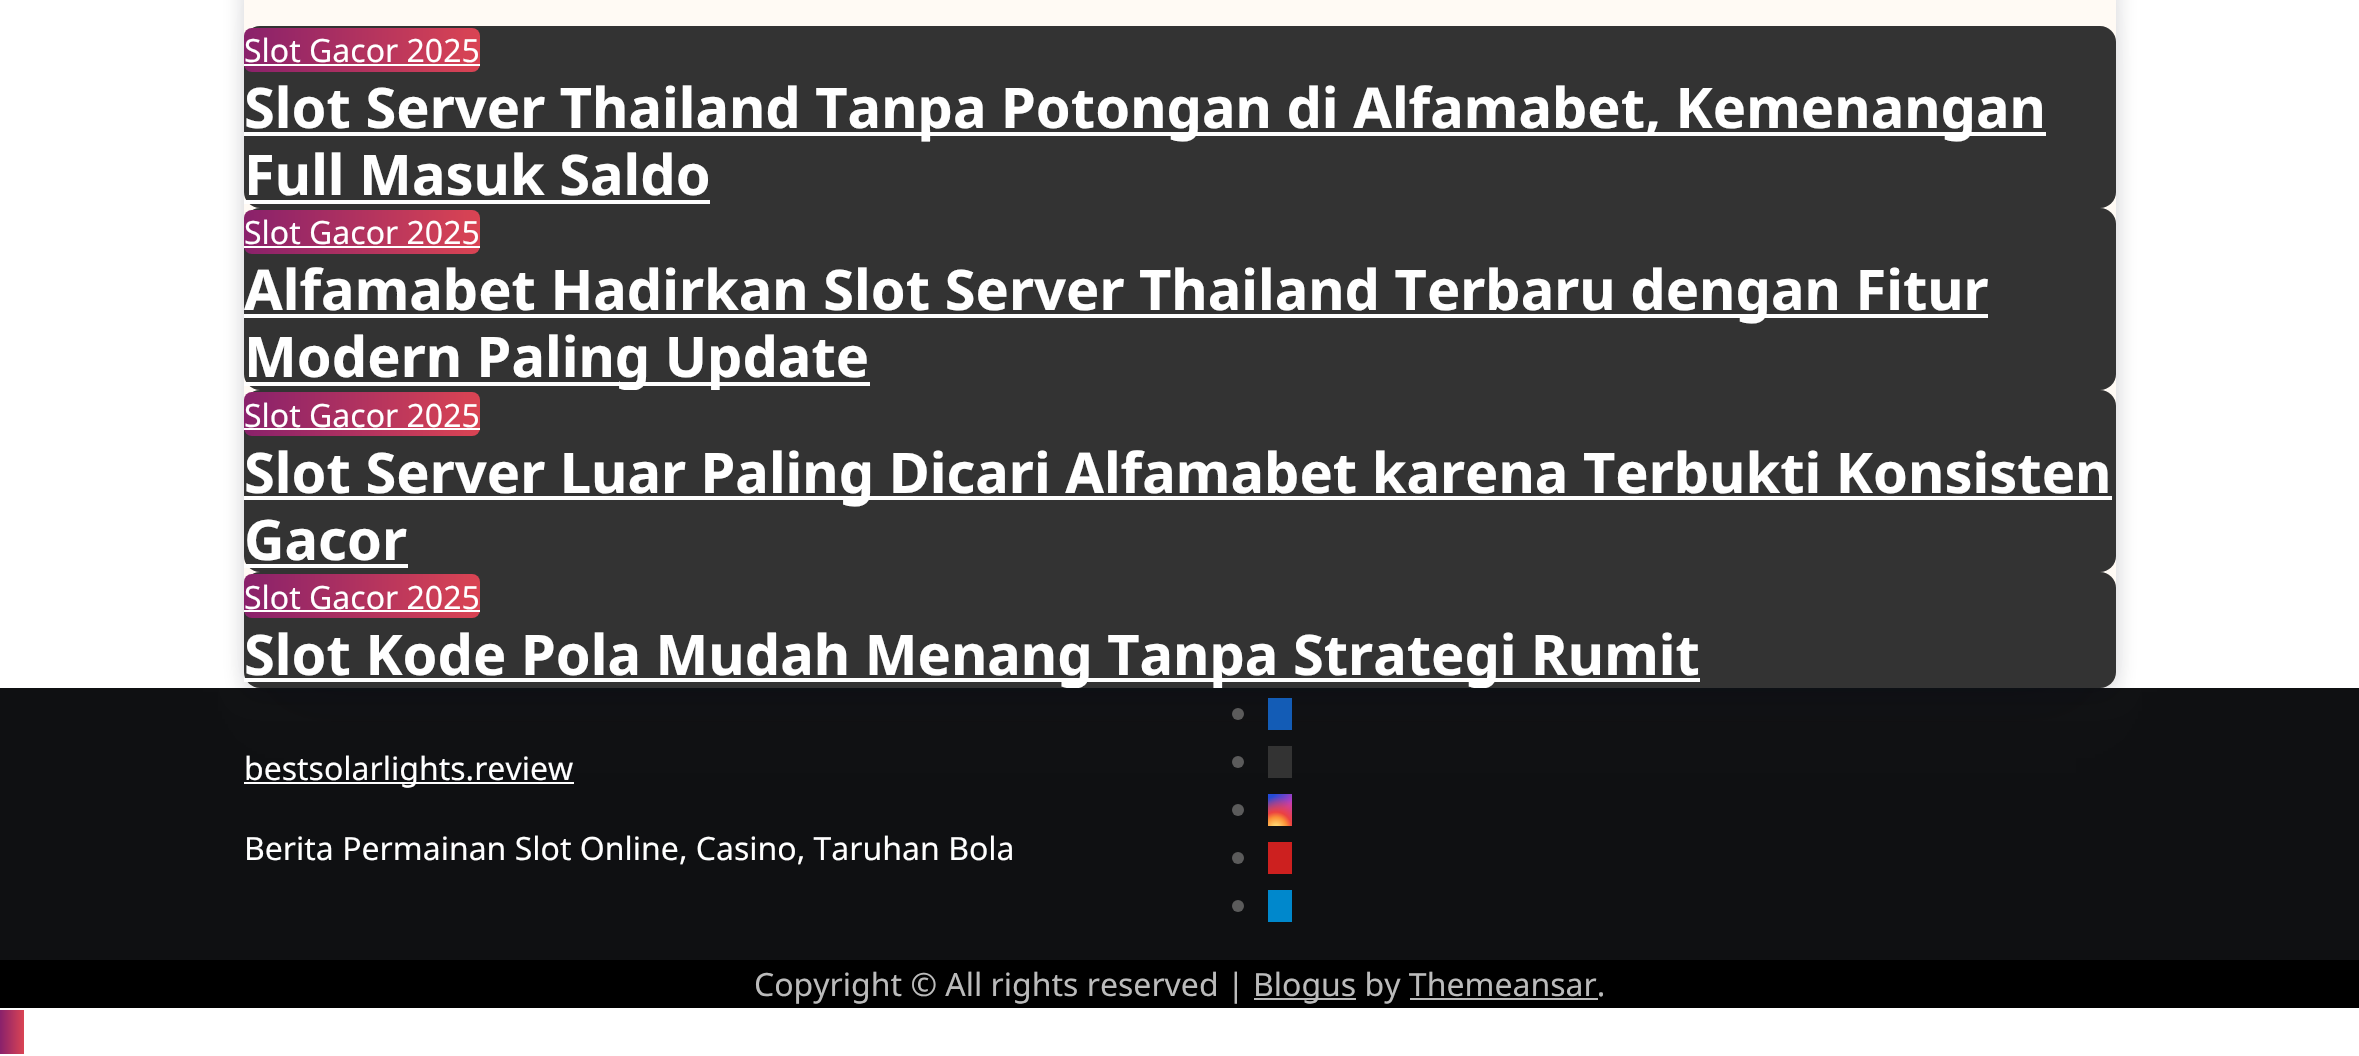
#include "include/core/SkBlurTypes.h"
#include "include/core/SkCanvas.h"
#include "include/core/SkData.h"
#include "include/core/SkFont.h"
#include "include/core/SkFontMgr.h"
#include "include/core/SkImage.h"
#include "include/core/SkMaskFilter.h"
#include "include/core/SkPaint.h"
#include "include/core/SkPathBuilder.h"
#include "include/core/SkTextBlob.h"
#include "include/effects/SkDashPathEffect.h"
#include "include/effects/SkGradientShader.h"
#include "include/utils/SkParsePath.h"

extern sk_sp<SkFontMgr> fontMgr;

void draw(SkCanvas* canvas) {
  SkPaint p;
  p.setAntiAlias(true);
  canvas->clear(SK_ColorWHITE);
  p.setColor(SkColorSetRGB(15, 16, 18));
  canvas->drawRect(SkRect::MakeLTRB(0, 688, 2359, 960), p);
  p.setColor(SkColorSetARGB(51, 7, 10, 25));
  p.setMaskFilter(SkMaskFilter::MakeBlur(kNormal_SkBlurStyle, 27));
  canvas->drawRect(SkRect::MakeLTRB(284, 18, 2076, 692), p);
  p.setMaskFilter(nullptr);
  p.setMaskFilter(SkMaskFilter::MakeBlur(kNormal_SkBlurStyle, 12));
  canvas->drawRoundRect(SkRect::MakeLTRB(246, -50, 2114, 692), 14, 14, p);
  p.setMaskFilter(nullptr);
  p.setColor(SkColorSetRGB(255, 250, 244));
  canvas->drawRoundRect(SkRect::MakeLTRB(244, -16, 2116, 688), 16, 16, p);
  p.setColor(SkColorSetRGB(51, 51, 51));
  canvas->drawRoundRect(SkRect::MakeLTRB(244, 26, 2116, 208), 16, 16, p);
  {
    const SkColor colors[] = {SkColorSetRGB(137, 33, 107), SkColorSetRGB(218, 68, 83)};
    const float stops[] = {0, 1};
    const SkPoint ends[] = {{244, 50}, {480, 50}};
    p.setShader(SkGradientShader::MakeLinear(ends, colors, stops, 2, SkTileMode::kClamp));
    p.setAlpha(255);
  }
  canvas->drawRoundRect(SkRect::MakeLTRB(244, 28, 480, 72), 8, 8, p);
  p.setShader(nullptr);
  p.setColor(SK_ColorWHITE);
  canvas->drawRect(SkRect::MakeLTRB(244, 64, 480, 66), p);
  canvas->drawRect(SkRect::MakeLTRB(244, 132, 2046, 136), p);
  canvas->drawRect(SkRect::MakeLTRB(244, 200, 710, 204), p);
  p.setColor(SkColorSetRGB(51, 51, 51));
  canvas->drawRoundRect(SkRect::MakeLTRB(244, 208, 2116, 390), 16, 16, p);
  {
    const SkColor colors[] = {SkColorSetRGB(137, 33, 107), SkColorSetRGB(218, 68, 83)};
    const float stops[] = {0, 1};
    const SkPoint ends[] = {{244, 232}, {480, 232}};
    p.setShader(SkGradientShader::MakeLinear(ends, colors, stops, 2, SkTileMode::kClamp));
    p.setAlpha(255);
  }
  canvas->drawRoundRect(SkRect::MakeLTRB(244, 210, 480, 254), 8, 8, p);
  p.setShader(nullptr);
  p.setColor(SK_ColorWHITE);
  canvas->drawRect(SkRect::MakeLTRB(244, 246, 480, 248), p);
  canvas->drawRect(SkRect::MakeLTRB(244, 314, 1988, 318), p);
  canvas->drawRect(SkRect::MakeLTRB(244, 382, 870, 386), p);
  p.setColor(SkColorSetRGB(51, 51, 51));
  canvas->drawRoundRect(SkRect::MakeLTRB(244, 390, 2116, 572), 16, 16, p);
  {
    const SkColor colors[] = {SkColorSetRGB(137, 33, 107), SkColorSetRGB(218, 68, 83)};
    const float stops[] = {0, 1};
    const SkPoint ends[] = {{244, 414}, {480, 414}};
    p.setShader(SkGradientShader::MakeLinear(ends, colors, stops, 2, SkTileMode::kClamp));
    p.setAlpha(255);
  }
  canvas->drawRoundRect(SkRect::MakeLTRB(244, 392, 480, 436), 8, 8, p);
  p.setShader(nullptr);
  p.setColor(SK_ColorWHITE);
  canvas->drawRect(SkRect::MakeLTRB(244, 428, 480, 430), p);
  canvas->drawRect(SkRect::MakeLTRB(244, 496, 2112, 500), p);
  canvas->drawRect(SkRect::MakeLTRB(244, 564, 408, 568), p);
  p.setColor(SkColorSetRGB(51, 51, 51));
  canvas->drawRoundRect(SkRect::MakeLTRB(244, 572, 2116, 688), 16, 16, p);
  {
    const SkColor colors[] = {SkColorSetRGB(137, 33, 107), SkColorSetRGB(218, 68, 83)};
    const float stops[] = {0, 1};
    const SkPoint ends[] = {{244, 596}, {480, 596}};
    p.setShader(SkGradientShader::MakeLinear(ends, colors, stops, 2, SkTileMode::kClamp));
    p.setAlpha(255);
  }
  canvas->drawRoundRect(SkRect::MakeLTRB(244, 574, 480, 618), 8, 8, p);
  p.setShader(nullptr);
  p.setColor(SK_ColorWHITE);
  canvas->drawRect(SkRect::MakeLTRB(244, 610, 480, 612), p);
  canvas->drawRect(SkRect::MakeLTRB(244, 678, 1700, 682), p);
  canvas->drawRect(SkRect::MakeLTRB(244, 782, 574, 784), p);
  p.setColor(SkColorSetRGB(91, 91, 91));
  canvas->drawCircle(1238, 714, 6, p);
  p.setColor(SkColorSetRGB(19, 92, 182));
  canvas->drawRect(SkRect::MakeLTRB(1268, 698, 1292, 730), p);
  p.setColor(SkColorSetRGB(91, 91, 91));
  canvas->drawCircle(1238, 762, 6, p);
  p.setColor(SkColorSetRGB(51, 51, 51));
  canvas->drawRect(SkRect::MakeLTRB(1268, 746, 1292, 778), p);
  p.setColor(SkColorSetRGB(91, 91, 91));
  canvas->drawCircle(1238, 810, 6, p);
  {
    const SkColor colors[] = {SkColorSetRGB(35, 75, 215), SkColorSetRGB(195, 60, 190)};
    const float stops[] = {0.12f, 0.58f};
    const SkPoint ends[] = {{1266, 796}, {1294, 824}};
    p.setShader(SkGradientShader::MakeLinear(ends, colors, stops, 2, SkTileMode::kClamp));
    p.setAlpha(255);
  }
  canvas->drawRect(SkRect::MakeLTRB(1268, 794, 1292, 824), p);
  {
    const SkColor colors[] = {SkColorSetRGB(255, 225, 125), SkColorSetRGB(255, 205, 105), SkColorSetRGB(250, 145, 55), SkColorSetRGB(235, 65, 65), SkColorSetARGB(0, 235, 65, 65)};
    const float stops[] = {0, 0.1f, 0.28f, 0.42f, 0.82f};
    p.setShader(SkGradientShader::MakeRadial({1276, 828}, 38, colors, stops, 5, SkTileMode::kClamp));
    p.setAlpha(255);
  }
  canvas->drawRect(SkRect::MakeLTRB(1268, 797, 1292, 826), p);
  p.setShader(nullptr);
  p.setColor(SkColorSetRGB(91, 91, 91));
  canvas->drawCircle(1238, 858, 6, p);
  p.setColor(SkColorSetRGB(205, 32, 31));
  canvas->drawRect(SkRect::MakeLTRB(1268, 842, 1292, 874), p);
  p.setColor(SkColorSetRGB(91, 91, 91));
  canvas->drawCircle(1238, 906, 6, p);
  p.setColor(SkColorSetRGB(0, 136, 204));
  canvas->drawRect(SkRect::MakeLTRB(1268, 890, 1292, 922), p);
  p.setColor(SK_ColorBLACK);
  canvas->drawRect(SkRect::MakeLTRB(0, 960, 2359, 1008), p);
  p.setColor(SkColorSetRGB(187, 187, 187));
  canvas->drawRect(SkRect::MakeLTRB(1254, 998, 1356, 1000), p);
  canvas->drawRect(SkRect::MakeLTRB(1410, 998, 1598, 1000), p);
  {
    const SkColor colors[] = {SkColorSetRGB(137, 33, 107), SkColorSetRGB(218, 68, 83)};
    const float stops[] = {0, 1};
    const SkPoint ends[] = {{0, 1032}, {24, 1032}};
    p.setShader(SkGradientShader::MakeLinear(ends, colors, stops, 2, SkTileMode::kClamp));
    p.setAlpha(255);
  }
  canvas->drawRect(SkRect::MakeLTRB(0, 1010, 24, 1054), p);
  SkFont font1(fontMgr->matchFamilyStyle("Noto Sans", SkFontStyle::Normal()), 32);
  font1.setSubpixel(true);
  p.setShader(nullptr);
  p.setColor(SK_ColorWHITE);
  canvas->drawString("Slot Gacor 2025", 244, 62, font1, p);
  SkFont font2(fontMgr->matchFamilyStyle("Noto Sans", SkFontStyle::Bold()), 56);
  font2.setSubpixel(true);
  canvas->drawString("Slot Server Thailand Tanpa Potongan di Alfamabet, Kemenangan", 244, 128, font2, p);
  canvas->drawString("Full Masuk Saldo", 244, 195, font2, p);
  canvas->drawString("Slot Gacor 2025", 244, 244, font1, p);
  canvas->drawString("Alfamabet Hadirkan Slot Server Thailand Terbaru dengan Fitur", 244, 310, font2, p);
  canvas->save();
  canvas->clipRect(SkRect::MakeLTRB(244, 256, 2116, 390));
  canvas->drawString("Modern Paling Update", 244, 377, font2, p);
  canvas->restore();
  canvas->drawString("Slot Gacor 2025", 244, 427, font1, p);
  canvas->drawString("Slot Server Luar Paling Dicari Alfamabet karena Terbukti Konsisten", 244, 493, font2, p);
  canvas->drawString("Gacor", 244, 560, font2, p);
  canvas->drawString("Slot Gacor 2025", 244, 609, font1, p);
  canvas->save();
  canvas->clipRect(SkRect::MakeLTRB(244, 620, 2116, 688));
  canvas->drawString("Slot Kode Pola Mudah Menang Tanpa Strategi Rumit", 244, 675, font2, p);
  canvas->restore();
  canvas->drawString("bestsolarlights.review", 244, 780, font1, p);
  canvas->drawString("Berita Permainan Slot Online, Casino, Taruhan Bola", 244, 860, font1, p);
  p.setColor(SkColorSetRGB(187, 187, 187));
  canvas->drawString("Copyright © All rights reserved |", 754, 996, font1, p);
  canvas->drawString("Blogus by Themeansar.", 1253, 996, font1, p);
}
